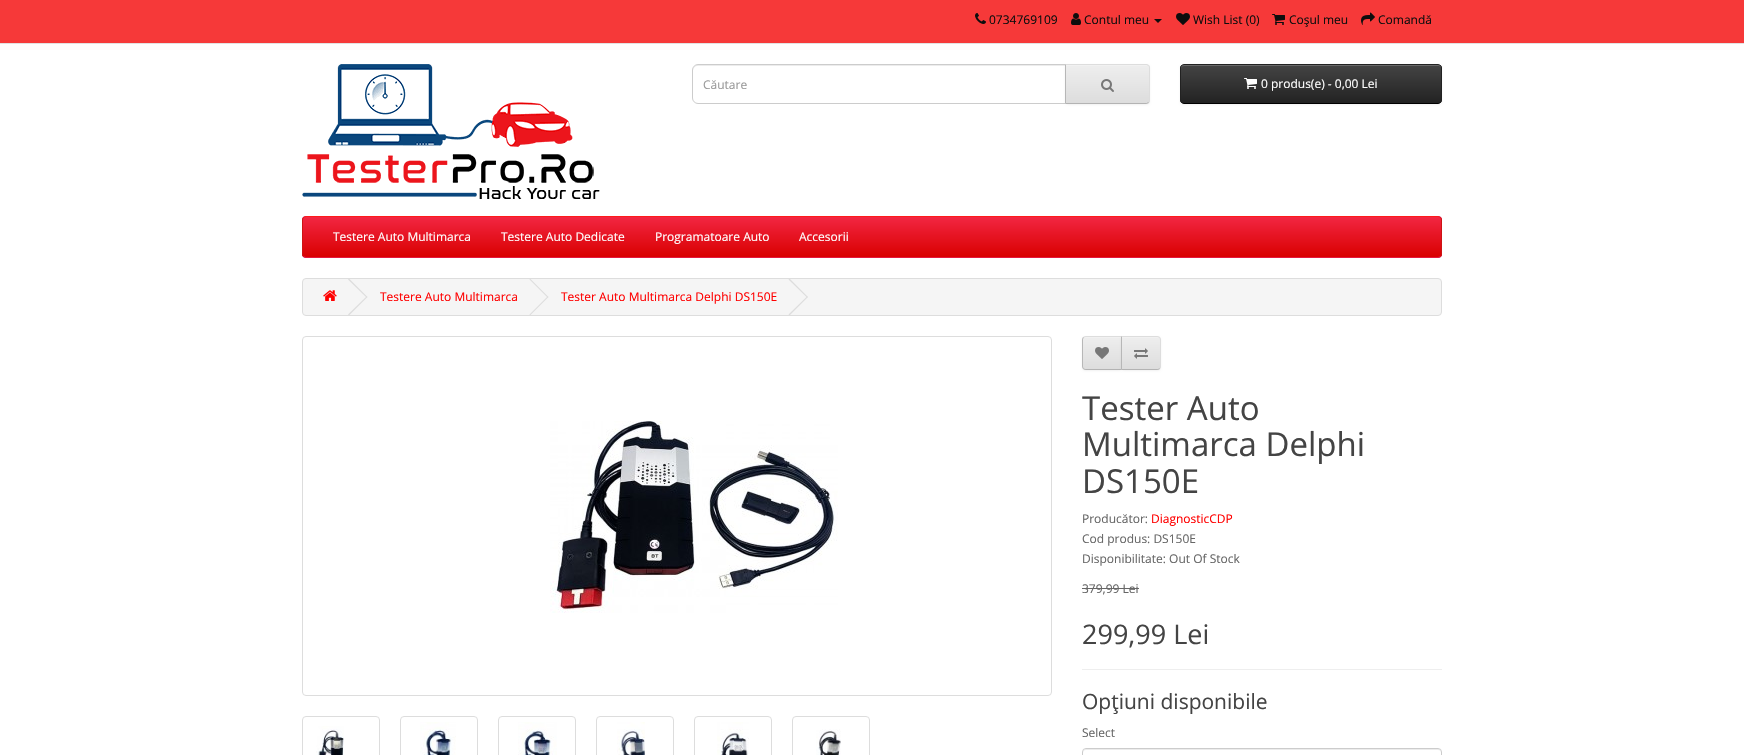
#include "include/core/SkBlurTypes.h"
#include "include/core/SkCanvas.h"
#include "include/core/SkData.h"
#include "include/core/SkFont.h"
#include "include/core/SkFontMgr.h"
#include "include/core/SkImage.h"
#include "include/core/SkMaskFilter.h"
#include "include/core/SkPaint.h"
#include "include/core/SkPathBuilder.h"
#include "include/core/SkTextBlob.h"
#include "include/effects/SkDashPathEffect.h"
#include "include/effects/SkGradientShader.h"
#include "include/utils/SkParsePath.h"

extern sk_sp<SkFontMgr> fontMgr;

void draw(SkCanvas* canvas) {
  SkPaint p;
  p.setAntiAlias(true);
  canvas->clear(SK_ColorWHITE);
  p.setColor(SkColorSetRGB(246, 57, 57));
  canvas->drawRect(SkRect::MakeLTRB(0, 0, 1744, 43), p);
  p.setColor(SkColorSetRGB(226, 226, 226));
  canvas->drawRect(SkRect::MakeLTRB(0, 43, 1744, 44), p);
  canvas->drawImageRect(SkImages::DeferredFromEncodedData(SkData::MakeFromFileName("images/1.png")), SkRect::MakeLTRB(975, 13, 986, 24), SkSamplingOptions());
  canvas->drawImageRect(SkImages::DeferredFromEncodedData(SkData::MakeFromFileName("images/2.png")), SkRect::MakeLTRB(1071, 13, 1081, 25), SkSamplingOptions());
  p.setColor(SkColorSetRGB(13, 13, 13));
  canvas->drawPath(SkPathBuilder().moveTo(1154, 19).lineTo(1162, 19).lineTo(1158, 23).close().detach(), p);
  canvas->drawImageRect(SkImages::DeferredFromEncodedData(SkData::MakeFromFileName("images/3.png")), SkRect::MakeLTRB(1176, 13, 1190, 25), SkSamplingOptions());
  canvas->drawImageRect(SkImages::DeferredFromEncodedData(SkData::MakeFromFileName("images/4.png")), SkRect::MakeLTRB(1272, 14, 1285, 25), SkSamplingOptions());
  canvas->drawImageRect(SkImages::DeferredFromEncodedData(SkData::MakeFromFileName("images/5.png")), SkRect::MakeLTRB(1361, 12, 1375, 25), SkSamplingOptions());
  canvas->drawImageRect(SkImages::DeferredFromEncodedData(SkData::MakeFromFileName("images/6.png")), SkRect::MakeLTRB(302, 64, 600, 199), SkSamplingOptions());
  p.setColor(SkColorSetRGB(236, 236, 236));
  canvas->drawPath(SkPathBuilder().moveTo(698, 66).lineTo(1065, 66).lineTo(1065, 65).lineTo(698, 65).cubicTo(695, 65, 693, 67, 693, 70).lineTo(693, 71).cubicTo(693, 68, 695, 66, 698, 66).close().detach(), p);
  p.setStyle(SkPaint::kStroke_Style);
  p.setStrokeWidth(1);
  p.setColor(SkColorSetRGB(204, 204, 204));
  canvas->drawPath(SkPathBuilder().moveTo(698, 64.5f).lineTo(1065.5f, 64.5f).lineTo(1065.5f, 103.5f).lineTo(698, 103.5f).cubicTo(695, 103.5f, 692.5f, 101, 692.5f, 98).lineTo(692.5f, 70).cubicTo(692.5f, 67, 695, 64.5f, 698, 64.5f).close().detach(), p);
  p.setStyle(SkPaint::kFill_Style);
  p.setColor(SkColorSetARGB(13, 0, 0, 0));
  p.setMaskFilter(SkMaskFilter::MakeBlur(kNormal_SkBlurStyle, 1));
  canvas->drawRoundRect(SkRect::MakeLTRB(1065, 65, 1150, 105), 4, 4, p);
  p.setMaskFilter(nullptr);
  p.setColor(SkColorSetRGB(231, 231, 231));
  canvas->drawPath(SkPathBuilder().moveTo(1065, 64).lineTo(1146, 64).cubicTo(1148, 64, 1150, 66, 1150, 68).lineTo(1150, 100).cubicTo(1150, 102, 1148, 104, 1146, 104).lineTo(1065, 104).close().detach(), p);
  canvas->save();
  canvas->clipPath(SkPathBuilder().moveTo(1065, 64).lineTo(1146, 64).cubicTo(1148, 64, 1150, 66, 1150, 68).lineTo(1150, 100).cubicTo(1150, 102, 1148, 104, 1146, 104).lineTo(1065, 104).close().detach(), true);
  {
    const SkColor colors[] = {SkColorSetRGB(238, 238, 238), SkColorSetRGB(221, 221, 221)};
    const float stops[] = {0, 1};
    const SkPoint ends[] = {{1108, 65}, {1108, 103}};
    p.setShader(SkGradientShader::MakeLinear(ends, colors, stops, 2, SkTileMode::kClamp));
    p.setAlpha(255);
  }
  canvas->drawRect(SkRect::MakeLTRB(1066, 65, 1150, 103), p);
  canvas->restore();
  p.setShader(nullptr);
  p.setColor(SkColorSetRGB(241, 241, 241));
  canvas->drawPath(SkPathBuilder().moveTo(1066, 66).lineTo(1146, 66).cubicTo(1148, 66, 1149, 67, 1149, 69).lineTo(1149, 68).cubicTo(1149, 66, 1148, 65, 1146, 65).lineTo(1066, 65).close().detach(), p);
  p.setColor(SkColorSetRGB(221, 221, 221));
  canvas->drawPath(SkPathBuilder().moveTo(1065, 64).lineTo(1066, 65).lineTo(1147, 65).lineTo(1148, 66).lineTo(1149, 65).lineTo(1146, 64).close().detach(), p);
  canvas->drawPath(SkPathBuilder().moveTo(1150, 100).lineTo(1150, 68).cubicTo(1150, 67, 1149.5f, 66, 1149, 65).lineTo(1148, 66).cubicTo(1149, 66, 1149, 67, 1149, 68).lineTo(1149, 100).cubicTo(1149, 101, 1149, 102, 1148, 102).lineTo(1149, 103).cubicTo(1149.5f, 102, 1150, 101, 1150, 100).close().detach(), p);
  p.setColor(SkColorSetRGB(179, 179, 179));
  canvas->drawPath(SkPathBuilder().moveTo(1146, 104).lineTo(1149, 103).lineTo(1148, 102).lineTo(1147, 103).lineTo(1066, 103).lineTo(1065, 104).close().detach(), p);
  p.setColor(SkColorSetRGB(183, 183, 183));
  canvas->drawPath(SkPathBuilder().moveTo(1065, 64).lineTo(1065, 104).lineTo(1066, 103).lineTo(1066, 65).close().detach(), p);
  canvas->drawImageRect(SkImages::DeferredFromEncodedData(SkData::MakeFromFileName("images/7.png")), SkRect::MakeLTRB(1101, 79, 1114, 92), SkSamplingOptions());
  p.setColor(SkColorSetARGB(13, 0, 0, 0));
  p.setMaskFilter(SkMaskFilter::MakeBlur(kNormal_SkBlurStyle, 1));
  canvas->drawRoundRect(SkRect::MakeLTRB(1180, 65, 1442, 105), 4, 4, p);
  p.setMaskFilter(nullptr);
  canvas->save();
  canvas->clipPath(SkPathBuilder().moveTo(1184, 64).lineTo(1438, 64).cubicTo(1440, 64, 1442, 66, 1442, 68).lineTo(1442, 100).cubicTo(1442, 102, 1440, 104, 1438, 104).lineTo(1184, 104).cubicTo(1182, 104, 1180, 102, 1180, 100).lineTo(1180, 68).cubicTo(1180, 66, 1182, 64, 1184, 64).close().detach(), true);
  {
    const SkColor colors[] = {SkColorSetRGB(68, 68, 68), SkColorSetRGB(34, 34, 34)};
    const float stops[] = {0, 1};
    const SkPoint ends[] = {{1311, 65}, {1311, 103}};
    p.setShader(SkGradientShader::MakeLinear(ends, colors, stops, 2, SkTileMode::kClamp));
    p.setAlpha(255);
  }
  canvas->drawRect(SkRect::MakeLTRB(1180, 65, 1442, 103), p);
  canvas->restore();
  p.setShader(nullptr);
  p.setColor(SkColorSetRGB(105, 105, 105));
  canvas->drawPath(SkPathBuilder().moveTo(1184, 66).lineTo(1439, 66).lineTo(1441, 67).lineTo(1441, 69).lineTo(1441, 68).cubicTo(1441, 66, 1440, 65, 1438, 65).lineTo(1184, 65).cubicTo(1182, 65, 1181, 66, 1181, 68).lineTo(1181, 69).cubicTo(1181, 67, 1182, 66, 1184, 66).close().detach(), p);
  p.setStyle(SkPaint::kStroke_Style);
  p.setColor(SK_ColorBLACK);
  canvas->drawPath(SkPathBuilder().moveTo(1440.5f, 102.5f).cubicTo(1440, 103, 1439, 103.5f, 1438, 103.5f).lineTo(1184, 103.5f).cubicTo(1183, 103.5f, 1182, 103, 1181.5f, 102.5f).detach(), p);
  p.setColor(SkColorSetRGB(34, 34, 34));
  canvas->drawPath(SkPathBuilder().moveTo(1181.5f, 102.5f).cubicTo(1181, 102, 1180.5f, 101, 1180.5f, 100).lineTo(1180.5f, 68).cubicTo(1180.5f, 67, 1181, 66, 1181.5f, 65.5f).cubicTo(1182, 65, 1183, 64.5f, 1184, 64.5f).lineTo(1438, 64.5f).cubicTo(1439, 64.5f, 1440, 65, 1440.5f, 65.5f).cubicTo(1441, 66, 1441.5f, 67, 1441.5f, 68).lineTo(1441.5f, 100).cubicTo(1441.5f, 101, 1441, 102, 1440.5f, 102.5f).detach(), p);
  canvas->drawImageRect(SkImages::DeferredFromEncodedData(SkData::MakeFromFileName("images/8.png")), SkRect::MakeLTRB(1244, 78, 1257, 89), SkSamplingOptions());
  p.setStyle(SkPaint::kFill_Style);
  p.setColor(SkColorSetRGB(200, 34, 96));
  canvas->drawRoundRect(SkRect::MakeLTRB(302, 216, 1442, 258), 4, 4, p);
  canvas->save();
  canvas->clipPath(SkPathBuilder().moveTo(306, 216).lineTo(1438, 216).cubicTo(1440, 216, 1442, 218, 1442, 220).lineTo(1442, 254).cubicTo(1442, 256, 1440, 258, 1438, 258).lineTo(306, 258).cubicTo(304, 258, 302, 256, 302, 254).lineTo(302, 220).cubicTo(302, 218, 304, 216, 306, 216).close().detach(), true);
  {
    const SkColor colors[] = {SkColorSetRGB(242, 38, 66), SkColorSetRGB(217, 0, 0)};
    const float stops[] = {0, 1};
    const SkPoint ends[] = {{872, 217}, {872, 257}};
    p.setShader(SkGradientShader::MakeLinear(ends, colors, stops, 2, SkTileMode::kClamp));
    p.setAlpha(255);
  }
  canvas->drawRect(SkRect::MakeLTRB(302, 217, 1442, 257), p);
  canvas->restore();
  p.setStyle(SkPaint::kStroke_Style);
  p.setShader(nullptr);
  p.setColor(SkColorSetRGB(255, 26, 26));
  canvas->drawPath(SkPathBuilder().moveTo(303.5f, 217.5f).lineTo(306, 216.5f).lineTo(1438, 216.5f).lineTo(1440.5f, 217.5f).detach(), p);
  p.setColor(SkColorSetRGB(205, 20, 20));
  canvas->drawPath(SkPathBuilder().moveTo(1440.5f, 217.5f).cubicTo(1441, 218, 1441.5f, 219, 1441.5f, 220).lineTo(1441.5f, 254).cubicTo(1441.5f, 255, 1441, 256, 1440.5f, 256.5f).detach(), p);
  p.setColor(SkColorSetRGB(229, 24, 62));
  canvas->drawPath(SkPathBuilder().moveTo(1440.5f, 256.5f).lineTo(1438, 257.5f).lineTo(306, 257.5f).lineTo(303.5f, 256.5f).detach(), p);
  p.setColor(SkColorSetRGB(205, 20, 20));
  canvas->drawPath(SkPathBuilder().moveTo(303.5f, 256.5f).cubicTo(303, 256, 302.5f, 255, 302.5f, 254).lineTo(302.5f, 220).cubicTo(302.5f, 219, 303, 218, 303.5f, 217.5f).detach(), p);
  p.setStyle(SkPaint::kFill_Style);
  p.setColor(SkColorSetRGB(245, 245, 245));
  canvas->drawRoundRect(SkRect::MakeLTRB(302.5f, 278.5f, 1441.5f, 315.5f), 3.5f, 3.5f, p);
  p.setStyle(SkPaint::kStroke_Style);
  p.setColor(SkColorSetRGB(221, 221, 221));
  canvas->drawRoundRect(SkRect::MakeLTRB(302.5f, 278.5f, 1441.5f, 315.5f), 3.5f, 3.5f, p);
  canvas->drawImageRect(SkImages::DeferredFromEncodedData(SkData::MakeFromFileName("images/9.png")), SkRect::MakeLTRB(323, 290, 337, 301), SkSamplingOptions());
  p.setStyle(SkPaint::kFill_Style);
  canvas->drawPath(SkPathBuilder().moveTo(348, 279.5f).lineTo(349, 278.5f).lineTo(367.5f, 297).lineTo(366.5f, 297.5f).close().detach(), p);
  canvas->drawPath(SkPathBuilder().moveTo(348, 314.5f).lineTo(366.5f, 296.5f).lineTo(367.5f, 297).lineTo(349, 315.5f).close().detach(), p);
  canvas->drawPath(SkPathBuilder().moveTo(529.5f, 279.5f).lineTo(530, 278.5f).lineTo(548.5f, 297).lineTo(547.5f, 297.5f).close().detach(), p);
  canvas->drawPath(SkPathBuilder().moveTo(529.5f, 314.5f).lineTo(547.5f, 296.5f).lineTo(548.5f, 297).lineTo(530, 315.5f).close().detach(), p);
  canvas->drawPath(SkPathBuilder().moveTo(788.5f, 279.5f).lineTo(789.5f, 278.5f).lineTo(808, 297).lineTo(807, 297.5f).close().detach(), p);
  canvas->drawPath(SkPathBuilder().moveTo(788.5f, 314.5f).lineTo(807, 296.5f).lineTo(808, 297).lineTo(789.5f, 315.5f).close().detach(), p);
  p.setStyle(SkPaint::kStroke_Style);
  canvas->drawRoundRect(SkRect::MakeLTRB(302.5f, 336.5f, 1051.5f, 695.5f), 3.5f, 3.5f, p);
  canvas->drawImageRect(SkImages::DeferredFromEncodedData(SkData::MakeFromFileName("images/10.png")), SkRect::MakeLTRB(550, 421, 838, 613), SkSamplingOptions());
  canvas->drawRoundRect(SkRect::MakeLTRB(302.5f, 716.5f, 379.5f, 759.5f), 3.5f, 3.5f, p);
  canvas->drawImageRect(SkImages::DeferredFromEncodedData(SkData::MakeFromFileName("images/11.png")), SkRect::MakeLTRB(316, 726, 344, 755), SkSamplingOptions());
  canvas->drawRoundRect(SkRect::MakeLTRB(400.5f, 716.5f, 477.5f, 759.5f), 3.5f, 3.5f, p);
  canvas->drawImageRect(SkImages::DeferredFromEncodedData(SkData::MakeFromFileName("images/12.png")), SkRect::MakeLTRB(420, 722, 456, 755), SkSamplingOptions());
  canvas->drawRoundRect(SkRect::MakeLTRB(498.5f, 716.5f, 575.5f, 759.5f), 3.5f, 3.5f, p);
  canvas->drawImageRect(SkImages::DeferredFromEncodedData(SkData::MakeFromFileName("images/13.png")), SkRect::MakeLTRB(518, 722, 557, 755), SkSamplingOptions());
  canvas->drawRoundRect(SkRect::MakeLTRB(596.5f, 716.5f, 673.5f, 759.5f), 3.5f, 3.5f, p);
  canvas->drawImageRect(SkImages::DeferredFromEncodedData(SkData::MakeFromFileName("images/14.png")), SkRect::MakeLTRB(617, 722, 645, 755), SkSamplingOptions());
  canvas->drawRoundRect(SkRect::MakeLTRB(694.5f, 716.5f, 771.5f, 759.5f), 3.5f, 3.5f, p);
  canvas->drawImageRect(SkImages::DeferredFromEncodedData(SkData::MakeFromFileName("images/15.png")), SkRect::MakeLTRB(717, 722, 749, 755), SkSamplingOptions());
  canvas->drawRoundRect(SkRect::MakeLTRB(792.5f, 716.5f, 869.5f, 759.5f), 3.5f, 3.5f, p);
  canvas->drawImageRect(SkImages::DeferredFromEncodedData(SkData::MakeFromFileName("images/16.png")), SkRect::MakeLTRB(816, 729, 841, 755), SkSamplingOptions());
  p.setStyle(SkPaint::kFill_Style);
  p.setColor(SkColorSetARGB(13, 0, 0, 0));
  p.setMaskFilter(SkMaskFilter::MakeBlur(kNormal_SkBlurStyle, 1));
  canvas->drawRoundRect(SkRect::MakeLTRB(1082, 337, 1122, 371), 4, 4, p);
  p.setMaskFilter(nullptr);
  canvas->save();
  canvas->clipPath(SkPathBuilder().moveTo(1086, 336).lineTo(1122, 336).lineTo(1122, 370).lineTo(1086, 370).cubicTo(1084, 370, 1082, 368, 1082, 366).lineTo(1082, 340).cubicTo(1082, 338, 1084, 336, 1086, 336).close().detach(), true);
  {
    const SkColor colors[] = {SkColorSetRGB(238, 238, 238), SkColorSetRGB(221, 221, 221)};
    const float stops[] = {0, 1};
    const SkPoint ends[] = {{1102, 337}, {1102, 369}};
    p.setShader(SkGradientShader::MakeLinear(ends, colors, stops, 2, SkTileMode::kClamp));
    p.setAlpha(255);
  }
  canvas->drawRect(SkRect::MakeLTRB(1082, 337, 1121, 369), p);
  canvas->restore();
  p.setShader(nullptr);
  p.setColor(SkColorSetRGB(241, 241, 241));
  canvas->drawPath(SkPathBuilder().moveTo(1086, 338).lineTo(1121, 338).lineTo(1121, 337).lineTo(1086, 337).cubicTo(1084.5f, 337, 1083, 338.5f, 1083, 340).lineTo(1083, 341).cubicTo(1083, 339, 1084, 338, 1086, 338).close().detach(), p);
  p.setColor(SkColorSetRGB(221, 221, 221));
  canvas->drawPath(SkPathBuilder().moveTo(1086, 336).cubicTo(1085, 336, 1084, 336.5f, 1083, 337).lineTo(1084, 338).cubicTo(1084, 337, 1085, 337, 1086, 337).lineTo(1121, 337).lineTo(1122, 336).close().detach(), p);
  p.setColor(SkColorSetRGB(179, 179, 179));
  canvas->drawPath(SkPathBuilder().moveTo(1122, 370).lineTo(1121, 369).lineTo(1086, 369).cubicTo(1085, 369, 1084, 369, 1084, 368).lineTo(1083, 369).cubicTo(1084, 369.5f, 1085, 370, 1086, 370).close().detach(), p);
  p.setColor(SkColorSetRGB(183, 183, 183));
  canvas->drawPath(SkPathBuilder().moveTo(1082, 340).lineTo(1082, 366).cubicTo(1082, 367, 1082.5f, 368, 1083, 369).lineTo(1084, 368).cubicTo(1083, 368, 1083, 367, 1083, 366).lineTo(1083, 340).cubicTo(1083, 339, 1083, 338, 1084, 338).lineTo(1083, 337).cubicTo(1082.5f, 338, 1082, 339, 1082, 340).close().detach(), p);
  canvas->drawImageRect(SkImages::DeferredFromEncodedData(SkData::MakeFromFileName("images/17.png")), SkRect::MakeLTRB(1095, 347, 1109, 359), SkSamplingOptions());
  p.setColor(SkColorSetARGB(13, 0, 0, 0));
  p.setMaskFilter(SkMaskFilter::MakeBlur(kNormal_SkBlurStyle, 1));
  canvas->drawRoundRect(SkRect::MakeLTRB(1121, 337, 1161, 371), 4, 4, p);
  p.setMaskFilter(nullptr);
  canvas->save();
  canvas->clipPath(SkPathBuilder().moveTo(1121, 336).lineTo(1157, 336).cubicTo(1159, 336, 1161, 338, 1161, 340).lineTo(1161, 366).cubicTo(1161, 368, 1159, 370, 1157, 370).lineTo(1121, 370).close().detach(), true);
  {
    const SkColor colors[] = {SkColorSetRGB(238, 238, 238), SkColorSetRGB(221, 221, 221)};
    const float stops[] = {0, 1};
    const SkPoint ends[] = {{1141, 337}, {1141, 369}};
    p.setShader(SkGradientShader::MakeLinear(ends, colors, stops, 2, SkTileMode::kClamp));
    p.setAlpha(255);
  }
  canvas->drawRect(SkRect::MakeLTRB(1122, 337, 1161, 369), p);
  canvas->restore();
  p.setShader(nullptr);
  p.setColor(SkColorSetRGB(241, 241, 241));
  canvas->drawPath(SkPathBuilder().moveTo(1122, 338).lineTo(1157, 338).cubicTo(1159, 338, 1160, 339, 1160, 341).lineTo(1160, 340).cubicTo(1160, 338.5f, 1158.5f, 337, 1157, 337).lineTo(1122, 337).close().detach(), p);
  p.setColor(SkColorSetRGB(221, 221, 221));
  canvas->drawPath(SkPathBuilder().moveTo(1121, 336).lineTo(1122, 337).lineTo(1157, 337).cubicTo(1158, 337, 1159, 337, 1159, 338).lineTo(1160, 337).cubicTo(1159, 336.5f, 1158, 336, 1157, 336).close().detach(), p);
  canvas->drawPath(SkPathBuilder().moveTo(1161, 366).lineTo(1161, 340).cubicTo(1161, 339, 1160.5f, 338, 1160, 337).lineTo(1159, 338).cubicTo(1160, 338, 1160, 339, 1160, 340).lineTo(1160, 366).cubicTo(1160, 367, 1160, 368, 1159, 368).lineTo(1160, 369).cubicTo(1160.5f, 368, 1161, 367, 1161, 366).close().detach(), p);
  p.setColor(SkColorSetRGB(179, 179, 179));
  canvas->drawPath(SkPathBuilder().moveTo(1157, 370).cubicTo(1158, 370, 1159, 369.5f, 1160, 369).lineTo(1159, 368).cubicTo(1159, 369, 1158, 369, 1157, 369).lineTo(1122, 369).lineTo(1121, 370).close().detach(), p);
  p.setColor(SkColorSetRGB(183, 183, 183));
  canvas->drawPath(SkPathBuilder().moveTo(1121, 336).lineTo(1121, 370).lineTo(1122, 369).lineTo(1122, 337).close().detach(), p);
  canvas->drawImageRect(SkImages::DeferredFromEncodedData(SkData::MakeFromFileName("images/18.png")), SkRect::MakeLTRB(1134, 348, 1148, 359), SkSamplingOptions());
  p.setColor(SkColorSetRGB(102, 102, 102));
  canvas->drawRect(SkRect::MakeLTRB(1082, 588, 1139, 589), p);
  p.setColor(SkColorSetRGB(238, 238, 238));
  canvas->drawRect(SkRect::MakeLTRB(1082, 669, 1442, 670), p);
  p.setColor(SkColorSetRGB(236, 236, 236));
  canvas->drawPath(SkPathBuilder().moveTo(1086, 750).lineTo(1438, 750).cubicTo(1440, 750, 1441, 751, 1441, 753).cubicTo(1441, 751, 1440, 749, 1438, 749).lineTo(1086, 749).lineTo(1084, 750).lineTo(1083, 753).cubicTo(1083, 751, 1084, 750, 1086, 750).close().detach(), p);
  p.setStyle(SkPaint::kStroke_Style);
  p.setColor(SkColorSetRGB(204, 204, 204));
  canvas->drawRoundRect(SkRect::MakeLTRB(1082.5f, 748.5f, 1441.5f, 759.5f), 3.5f, 3.5f, p);
  SkFont font1(fontMgr->matchFamilyStyle("Open Sans", SkFontStyle::Normal()), 12);
  font1.setSubpixel(true);
  p.setStyle(SkPaint::kFill_Style);
  p.setColor(SkColorSetRGB(13, 13, 13));
  canvas->drawString("0734769109", 989, 24, font1, p);
  canvas->drawString("Contul meu", 1084, 24, font1, p);
  canvas->drawString("Wish List (0)", 1193, 24, font1, p);
  canvas->drawString("Coşul meu", 1289, 24, font1, p);
  canvas->drawString("Comandă", 1378, 24, font1, p);
  p.setColor(SkColorSetRGB(153, 153, 153));
  canvas->drawString("Căutare", 703, 89, font1, p);
  p.setColor(SK_ColorWHITE);
  canvas->drawString("0 produs(e) - 0,00 Lei", 1261, 88, font1, p);
  canvas->drawString("Testere Auto Multimarca", 333, 241, font1, p);
  canvas->drawString("Testere Auto Dedicate", 501, 241, font1, p);
  canvas->drawString("Programatoare Auto", 655, 241, font1, p);
  canvas->drawString("Accesorii", 799, 241, font1, p);
  p.setColor(SkColorSetRGB(255, 0, 0));
  canvas->drawString("Testere Auto Multimarca", 380, 301, font1, p);
  canvas->drawString("Tester Auto Multimarca Delphi DS150E", 561, 301, font1, p);
  SkFont font2(fontMgr->matchFamilyStyle("Open Sans", SkFontStyle::Normal()), 33);
  font2.setSubpixel(true);
  p.setColor(SkColorSetRGB(68, 68, 68));
  canvas->drawString("Tester Auto", 1082, 420, font2, p);
  canvas->drawString("Multimarca Delphi", 1082, 456, font2, p);
  canvas->drawString("DS150E", 1082, 493, font2, p);
  p.setColor(SkColorSetRGB(102, 102, 102));
  canvas->drawString("Producător:", 1082, 523, font1, p);
  p.setColor(SkColorSetRGB(255, 0, 0));
  canvas->drawString("DiagnosticCDP", 1151, 523, font1, p);
  p.setColor(SkColorSetRGB(102, 102, 102));
  canvas->drawString("Cod produs: DS150E", 1082, 543, font1, p);
  canvas->drawString("Disponibilitate: Out Of Stock", 1082, 563, font1, p);
  canvas->drawString("379,99 Lei", 1082, 593, font1, p);
  SkFont font3(fontMgr->matchFamilyStyle("Open Sans", SkFontStyle::Normal()), 27);
  font3.setSubpixel(true);
  p.setColor(SkColorSetRGB(68, 68, 68));
  canvas->drawString("299,99 Lei", 1082, 644, font3, p);
  SkFont font4(fontMgr->matchFamilyStyle("Open Sans", SkFontStyle::Normal()), 21);
  font4.setSubpixel(true);
  canvas->drawString("Opţiuni disponibile", 1082, 709, font4, p);
  p.setColor(SkColorSetRGB(102, 102, 102));
  canvas->drawString("Select", 1082, 737, font1, p);
}
